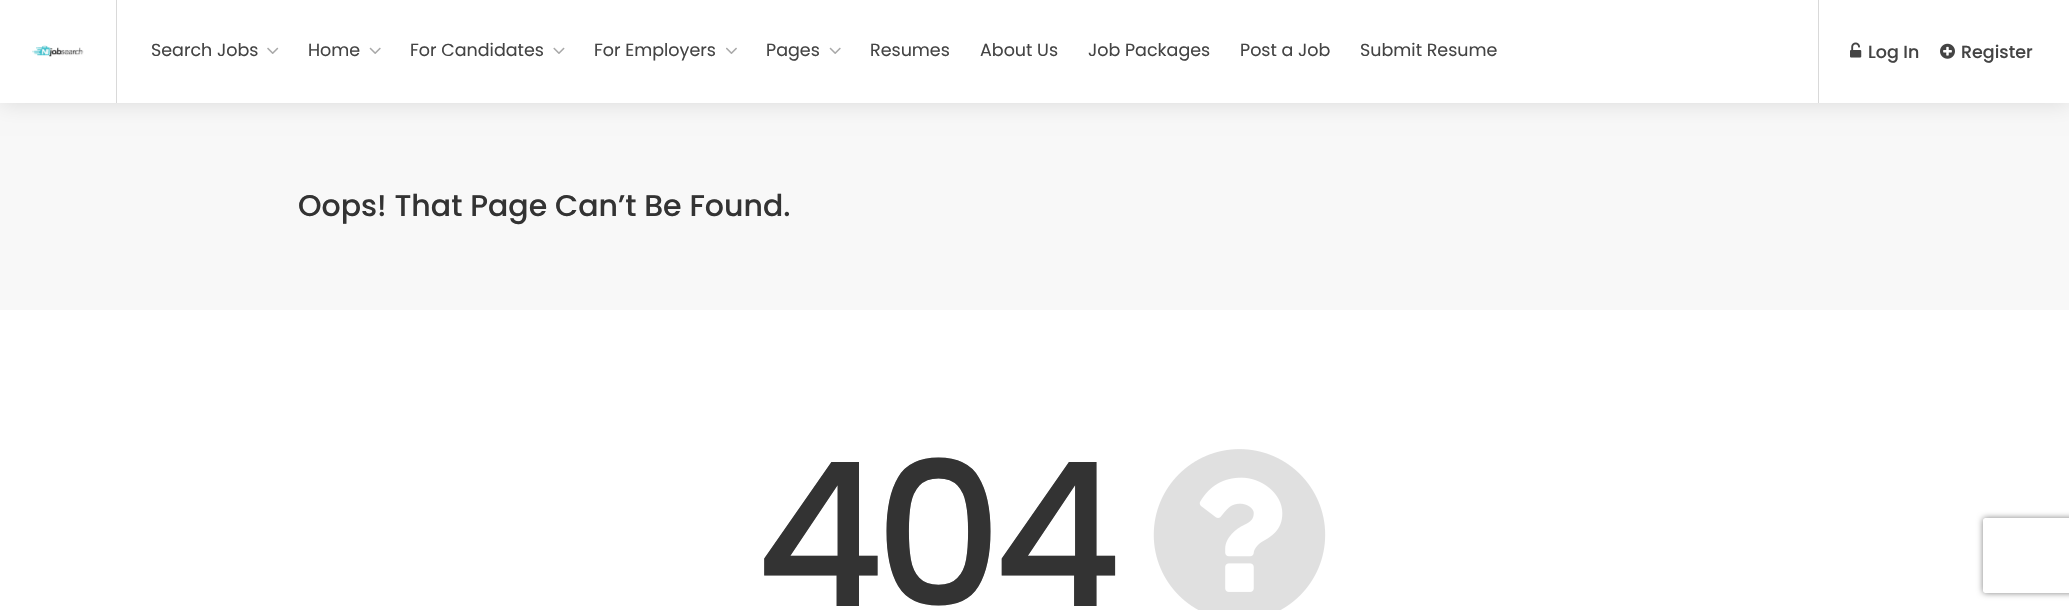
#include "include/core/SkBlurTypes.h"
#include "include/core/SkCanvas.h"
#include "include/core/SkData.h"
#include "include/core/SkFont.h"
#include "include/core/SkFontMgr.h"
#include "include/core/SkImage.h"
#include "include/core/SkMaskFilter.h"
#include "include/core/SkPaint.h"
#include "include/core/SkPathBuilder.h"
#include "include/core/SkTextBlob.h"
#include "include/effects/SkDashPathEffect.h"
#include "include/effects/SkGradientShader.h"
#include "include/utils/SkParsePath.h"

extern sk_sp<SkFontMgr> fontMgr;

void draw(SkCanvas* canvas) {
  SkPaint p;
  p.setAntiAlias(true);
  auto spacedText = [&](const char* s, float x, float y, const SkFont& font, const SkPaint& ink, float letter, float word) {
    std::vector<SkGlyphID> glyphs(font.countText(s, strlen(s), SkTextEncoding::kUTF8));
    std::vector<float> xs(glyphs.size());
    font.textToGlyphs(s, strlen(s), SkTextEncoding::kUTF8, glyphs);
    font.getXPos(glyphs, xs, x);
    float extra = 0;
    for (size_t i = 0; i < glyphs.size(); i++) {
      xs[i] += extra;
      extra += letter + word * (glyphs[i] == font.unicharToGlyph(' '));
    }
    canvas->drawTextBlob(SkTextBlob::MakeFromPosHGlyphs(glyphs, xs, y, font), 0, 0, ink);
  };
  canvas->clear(SK_ColorWHITE);
  p.setColor(SkColorSetRGB(248, 248, 248));
  canvas->drawRect(SkRect::MakeLTRB(0, 103, 2069, 310), p);
  p.setColor(SkColorSetARGB(31, 0, 0, 0));
  p.setMaskFilter(SkMaskFilter::MakeBlur(kNormal_SkBlurStyle, 11));
  canvas->drawRect(SkRect::MakeLTRB(0, 0, 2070, 103), p);
  p.setMaskFilter(nullptr);
  p.setColor(SK_ColorWHITE);
  canvas->drawRect(SkRect::MakeLTRB(0, 0, 2069, 103), p);
  p.setColor(SkColorSetRGB(217, 217, 217));
  canvas->drawRect(SkRect::MakeLTRB(116, 0, 117, 103), p);
  canvas->drawImageRect(SkImages::DeferredFromEncodedData(SkData::MakeFromFileName("images/1.png")), SkRect::MakeLTRB(32, 45, 84, 57), SkSamplingOptions());
  canvas->drawImageRect(SkImages::DeferredFromEncodedData(SkData::MakeFromFileName("images/2.png")), SkRect::MakeLTRB(267, 47, 279, 54), SkSamplingOptions());
  canvas->drawImageRect(SkImages::DeferredFromEncodedData(SkData::MakeFromFileName("images/3.png")), SkRect::MakeLTRB(369, 47, 381, 54), SkSamplingOptions());
  canvas->drawImageRect(SkImages::DeferredFromEncodedData(SkData::MakeFromFileName("images/4.png")), SkRect::MakeLTRB(553, 47, 565, 54), SkSamplingOptions());
  canvas->drawImageRect(SkImages::DeferredFromEncodedData(SkData::MakeFromFileName("images/5.png")), SkRect::MakeLTRB(726, 47, 737, 54), SkSamplingOptions());
  canvas->drawImageRect(SkImages::DeferredFromEncodedData(SkData::MakeFromFileName("images/3.png")), SkRect::MakeLTRB(829, 47, 841, 54), SkSamplingOptions());
  canvas->drawRect(SkRect::MakeLTRB(1818, 0, 1819, 103), p);
  canvas->drawImageRect(SkImages::DeferredFromEncodedData(SkData::MakeFromFileName("images/6.png")), SkRect::MakeLTRB(1850, 42, 1862, 58), SkSamplingOptions());
  canvas->drawImageRect(SkImages::DeferredFromEncodedData(SkData::MakeFromFileName("images/7.png")), SkRect::MakeLTRB(1940, 43, 1955, 59), SkSamplingOptions());
  canvas->drawImageRect(SkImages::DeferredFromEncodedData(SkData::MakeFromFileName("images/8.png")), SkRect::MakeLTRB(1153, 449, 1326, 610), SkSamplingOptions());
  canvas->save();
  canvas->clipPath(SkPathBuilder(SkPathFillType::kEvenOdd).moveTo(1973, 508).lineTo(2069, 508).lineTo(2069, 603).lineTo(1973, 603).close().moveTo(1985.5f, 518).lineTo(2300.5f, 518).cubicTo(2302, 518, 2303, 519, 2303, 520.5f).lineTo(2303, 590.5f).cubicTo(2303, 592, 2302, 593, 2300.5f, 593).lineTo(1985.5f, 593).cubicTo(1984, 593, 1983, 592, 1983, 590.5f).lineTo(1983, 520.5f).cubicTo(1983, 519, 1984, 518, 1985.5f, 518).close().detach(), true);
  p.setColor(SkColorSetRGB(128, 128, 128));
  p.setMaskFilter(SkMaskFilter::MakeBlur(kNormal_SkBlurStyle, 3));
  canvas->drawRoundRect(SkRect::MakeLTRB(1983, 518, 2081, 593), 2.5f, 2.5f, p);
  p.setMaskFilter(nullptr);
  canvas->restore();
  SkFont font1(fontMgr->matchFamilyStyle("Poppins", SkFontStyle::Normal()), 17.5f);
  font1.setSubpixel(true);
  p.setColor(SkColorSetRGB(68, 68, 68));
  canvas->drawString("Search Jobs", 151, 56, font1, p);
  canvas->drawString("Home", 308, 56, font1, p);
  canvas->drawString("For Candidates", 410, 56, font1, p);
  canvas->drawString("For Employers", 594, 56, font1, p);
  canvas->drawString("Pages", 766, 56, font1, p);
  canvas->drawString("Resumes", 870, 56, font1, p);
  canvas->drawString("About Us", 980, 56, font1, p);
  canvas->drawString("Job Packages", 1088, 56, font1, p);
  canvas->drawString("Post a Job", 1240, 56, font1, p);
  canvas->drawString("Submit Resume", 1360, 56, font1, p);
  SkFont font2(fontMgr->matchFamilyStyle("Poppins", SkFontStyle(500, SkFontStyle::kNormal_Width, SkFontStyle::kUpright_Slant)), 17.5f);
  font2.setSubpixel(true);
  canvas->drawString("Log In", 1868, 58, font2, p);
  canvas->drawString("Register", 1961, 58, font2, p);
  SkFont font3(fontMgr->matchFamilyStyle("Poppins", SkFontStyle(500, SkFontStyle::kNormal_Width, SkFontStyle::kUpright_Slant)), 30);
  font3.setSubpixel(true);
  p.setColor(SkColorSetRGB(51, 51, 51));
  canvas->drawString("Oops! That Page Can’t Be Found.", 298, 216, font3, p);
  SkFont font4(fontMgr->matchFamilyStyle("Poppins", SkFontStyle(500, SkFontStyle::kNormal_Width, SkFontStyle::kUpright_Slant)), 200);
  font4.setSubpixel(true);
  spacedText("404", 755, 606, font4, p, -10, 0);
}
